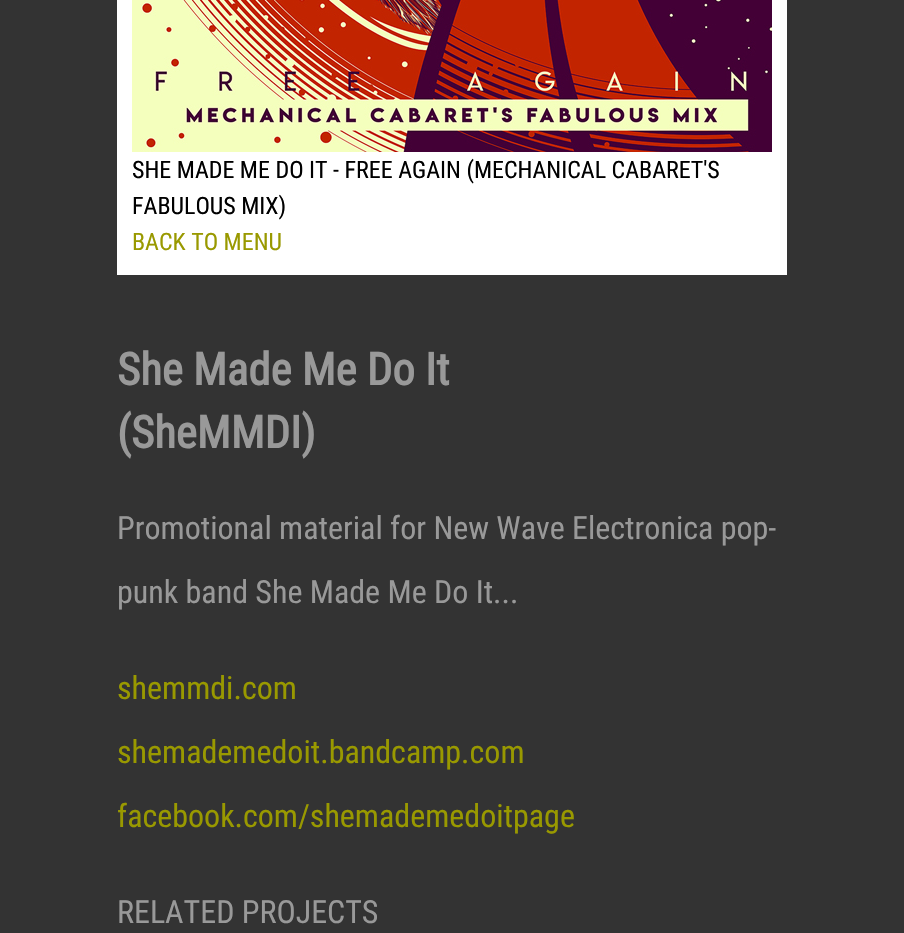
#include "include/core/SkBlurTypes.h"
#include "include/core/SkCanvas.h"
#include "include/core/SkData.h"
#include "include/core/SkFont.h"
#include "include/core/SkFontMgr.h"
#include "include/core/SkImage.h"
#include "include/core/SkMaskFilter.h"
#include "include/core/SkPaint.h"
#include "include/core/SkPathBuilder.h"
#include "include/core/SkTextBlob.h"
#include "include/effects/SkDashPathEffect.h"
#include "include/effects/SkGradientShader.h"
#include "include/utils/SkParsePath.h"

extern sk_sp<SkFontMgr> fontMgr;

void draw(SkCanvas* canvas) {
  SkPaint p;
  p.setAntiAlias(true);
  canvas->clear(SkColorSetRGB(51, 51, 51));
  p.setColor(SK_ColorWHITE);
  canvas->drawRect(SkRect::MakeLTRB(117, 0, 787, 275), p);
  canvas->drawImageRect(SkImages::DeferredFromEncodedData(SkData::MakeFromFileName("images/1.png")), SkRect::MakeLTRB(132, 0, 772, 152), SkSamplingOptions());
  SkFont font1(fontMgr->matchFamilyStyle("Roboto Condensed", SkFontStyle::Normal()), 24);
  font1.setSubpixel(true);
  p.setColor(SK_ColorBLACK);
  canvas->drawString("SHE MADE ME DO IT - FREE AGAIN (MECHANICAL CABARET'S", 132, 178, font1, p);
  canvas->drawString("FABULOUS MIX)", 132, 214, font1, p);
  p.setColor(SkColorSetRGB(153, 153, 0));
  canvas->drawString("BACK TO MENU", 132, 250, font1, p);
  SkFont font2(fontMgr->matchFamilyStyle("Roboto Condensed", SkFontStyle::Bold()), 44.75f);
  font2.setSubpixel(true);
  p.setColor(SkColorSetRGB(153, 153, 153));
  canvas->drawString("She Made Me Do It", 117, 385, font2, p);
  canvas->drawString("(SheMMDI)", 117, 448, font2, p);
  SkFont font3(fontMgr->matchFamilyStyle("Roboto Condensed", SkFontStyle::Normal()), 32);
  font3.setSubpixel(true);
  canvas->drawString("Promotional material for New Wave Electronica pop-", 117, 539, font3, p);
  canvas->drawString("punk band She Made Me Do It...", 117, 603, font3, p);
  p.setColor(SkColorSetRGB(153, 153, 0));
  canvas->drawString("shemmdi.com", 117, 699, font3, p);
  canvas->drawString("shemademedoit.bandcamp.com", 117, 763, font3, p);
  canvas->drawString("facebook.com/shemademedoitpage", 117, 827, font3, p);
  p.setColor(SkColorSetRGB(153, 153, 153));
  canvas->drawString("RELATED PROJECTS", 117, 923, font3, p);
}
